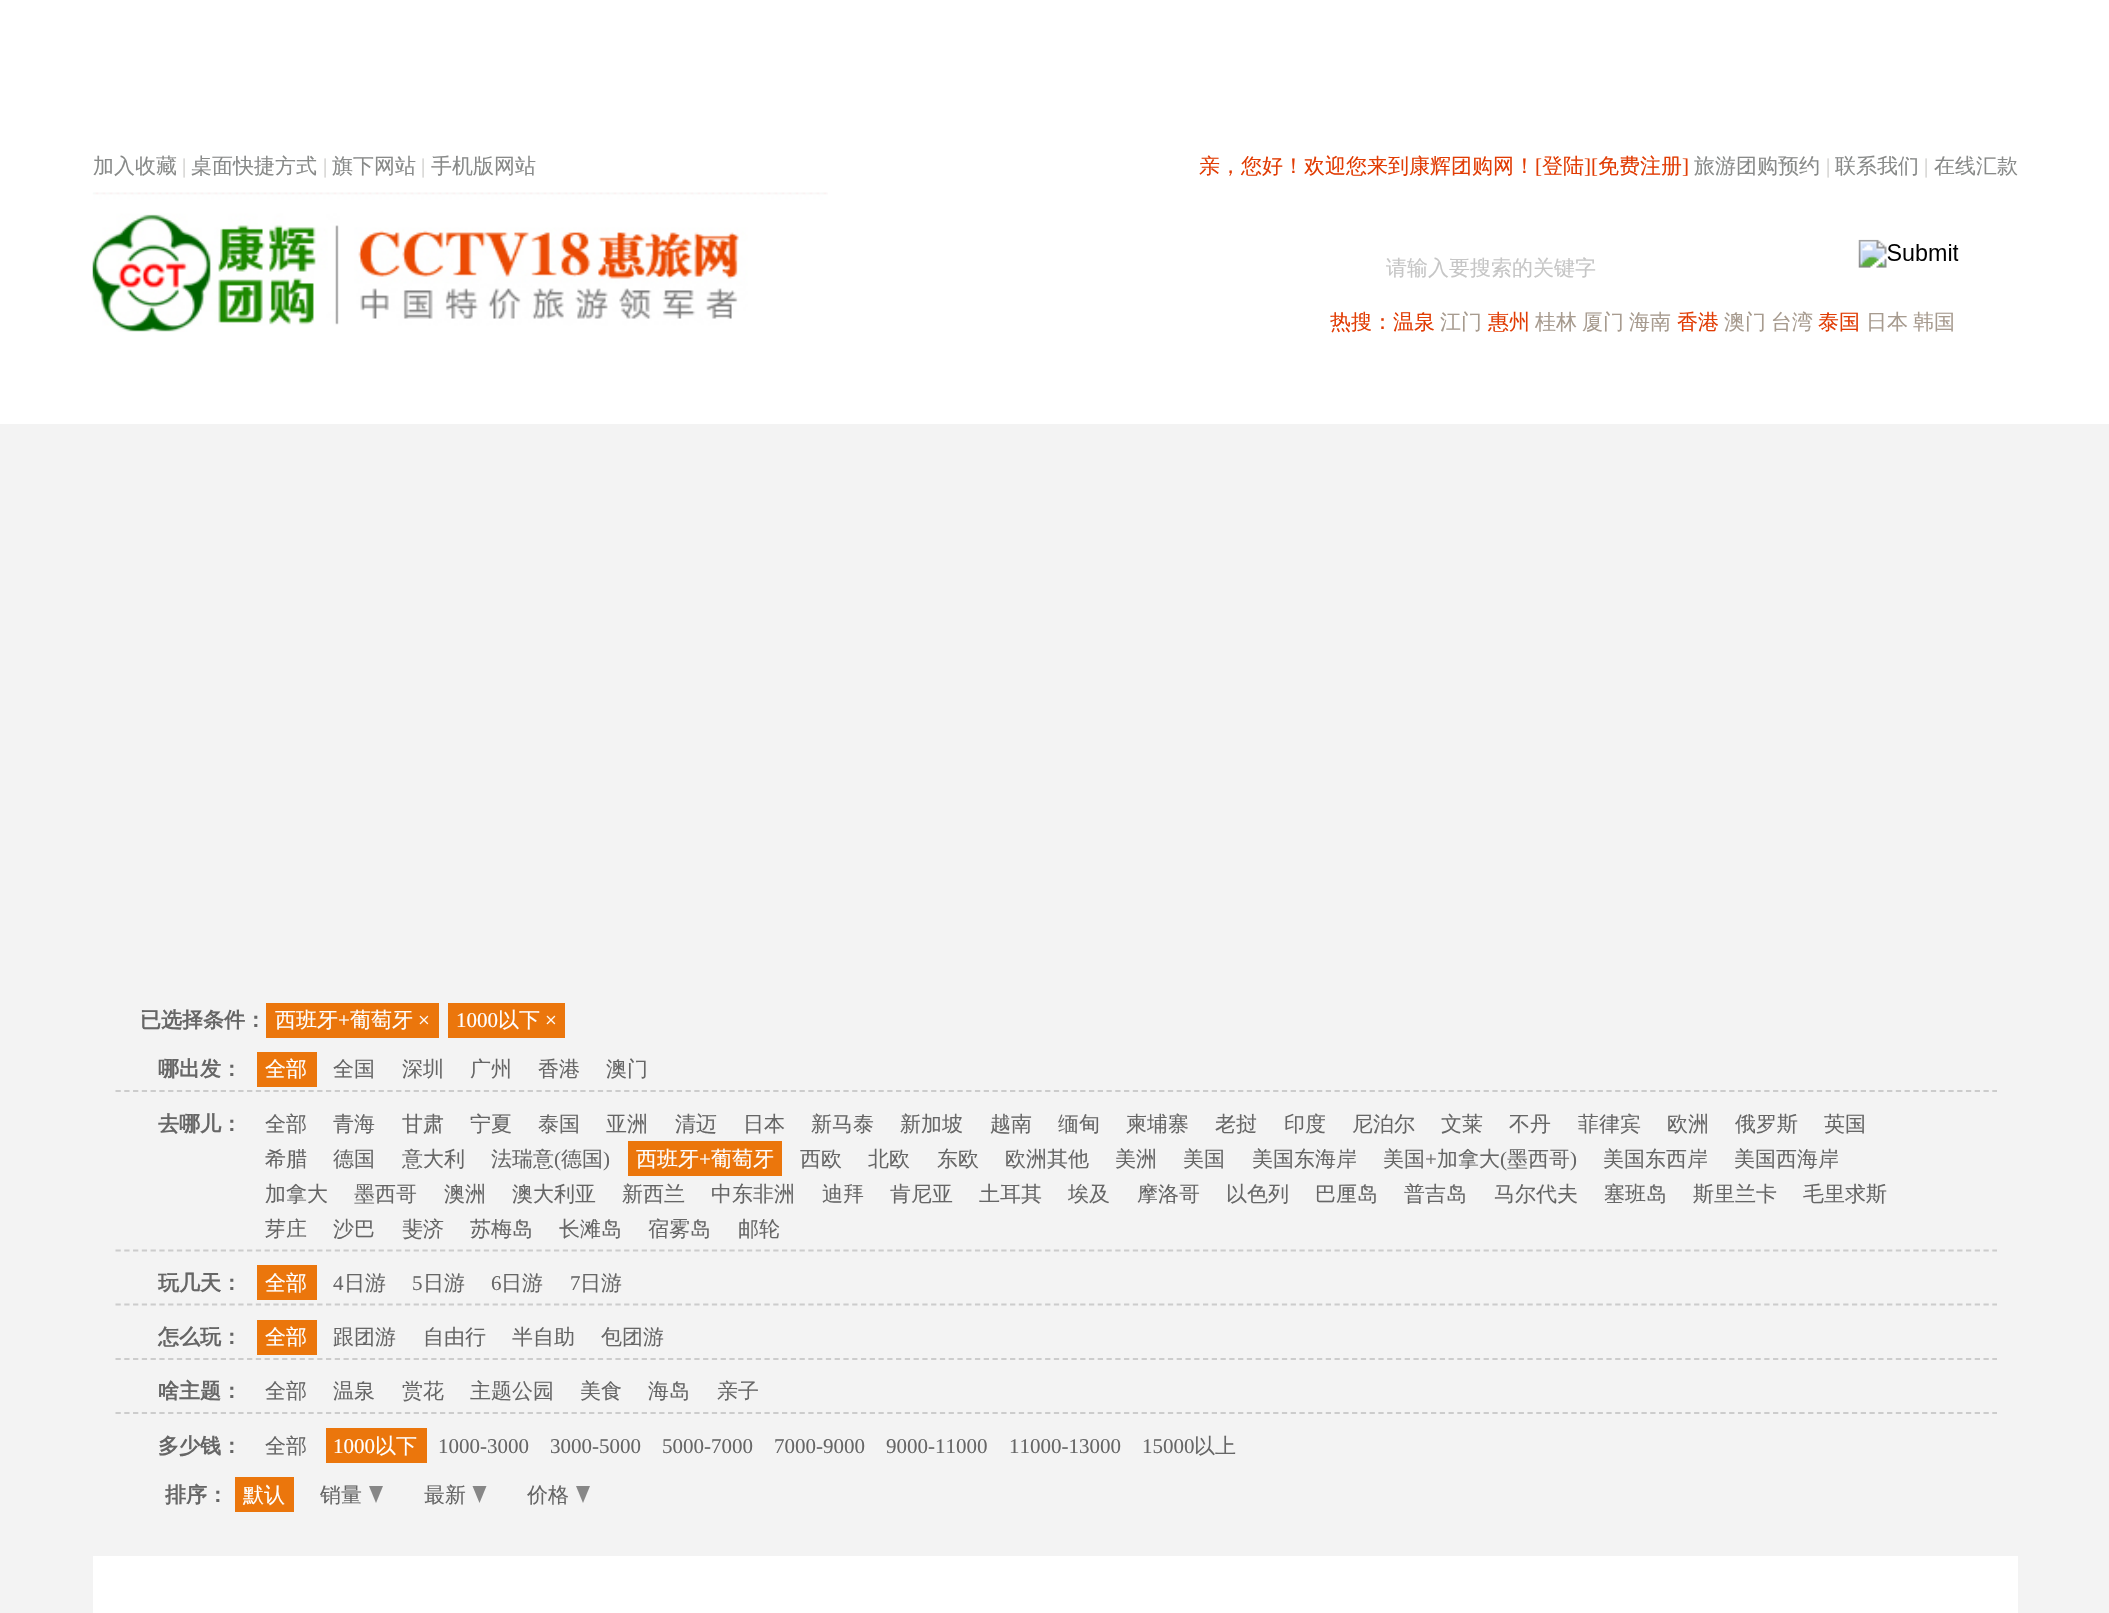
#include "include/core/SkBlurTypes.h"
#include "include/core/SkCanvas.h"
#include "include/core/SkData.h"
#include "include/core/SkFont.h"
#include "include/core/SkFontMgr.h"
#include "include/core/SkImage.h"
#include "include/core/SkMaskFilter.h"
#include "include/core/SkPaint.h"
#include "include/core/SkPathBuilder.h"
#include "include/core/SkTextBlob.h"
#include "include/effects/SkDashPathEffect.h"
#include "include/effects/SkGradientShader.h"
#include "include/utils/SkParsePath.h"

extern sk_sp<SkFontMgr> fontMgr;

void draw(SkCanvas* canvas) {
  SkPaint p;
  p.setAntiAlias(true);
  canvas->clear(SK_ColorWHITE);
  canvas->drawImageRect(SkImages::DeferredFromEncodedData(SkData::MakeFromFileName("images/1.png")), SkRect::MakeLTRB(92, 192, 828, 332), SkSamplingOptions());
  canvas->drawImageRect(SkImages::DeferredFromEncodedData(SkData::MakeFromFileName("images/2.png")), SkRect::MakeLTRB(1858, 239, 1959, 268), SkSamplingOptions());
  p.setColor(SkColorSetRGB(243, 243, 243));
  canvas->drawRect(SkRect::MakeLTRB(0, 424, 2109, 1613), p);
  p.setColor(SkColorSetRGB(235, 118, 12));
  canvas->drawRect(SkRect::MakeLTRB(266, 1003, 439, 1038), p);
  canvas->drawRect(SkRect::MakeLTRB(448, 1003, 565, 1038), p);
  p.setStyle(SkPaint::kStroke_Style);
  p.setStrokeWidth(1.8f);
  p.setColor(SkColorSetRGB(204, 204, 204));
  p.setPathEffect(SkDashPathEffect::Make({{5.25f, 3.52f}}, 0));
  canvas->drawPath(SkPathBuilder().moveTo(115.5f, 1091).lineTo(1997, 1091).detach(), p);
  p.setPathEffect(nullptr);
  p.setStyle(SkPaint::kFill_Style);
  p.setColor(SkColorSetRGB(235, 118, 12));
  canvas->drawRect(SkRect::MakeLTRB(257, 1052, 317, 1087), p);
  p.setStyle(SkPaint::kStroke_Style);
  p.setColor(SkColorSetRGB(204, 204, 204));
  p.setPathEffect(SkDashPathEffect::Make({{5.25f, 3.52f}}, 0));
  canvas->drawPath(SkPathBuilder().moveTo(115.5f, 1250.5f).lineTo(1997, 1250.5f).detach(), p);
  p.setPathEffect(nullptr);
  p.setStyle(SkPaint::kFill_Style);
  p.setColor(SkColorSetRGB(235, 118, 12));
  canvas->drawRect(SkRect::MakeLTRB(628, 1141, 782, 1176), p);
  p.setStyle(SkPaint::kStroke_Style);
  p.setColor(SkColorSetRGB(204, 204, 204));
  p.setPathEffect(SkDashPathEffect::Make({{5.25f, 3.52f}}, 0));
  canvas->drawPath(SkPathBuilder().moveTo(115.5f, 1304.5f).lineTo(1997, 1304.5f).detach(), p);
  p.setPathEffect(nullptr);
  p.setStyle(SkPaint::kFill_Style);
  p.setColor(SkColorSetRGB(235, 118, 12));
  canvas->drawRect(SkRect::MakeLTRB(257, 1265, 317, 1300), p);
  p.setStyle(SkPaint::kStroke_Style);
  p.setColor(SkColorSetRGB(204, 204, 204));
  p.setPathEffect(SkDashPathEffect::Make({{5.25f, 3.52f}}, 0));
  canvas->drawPath(SkPathBuilder().moveTo(115.5f, 1359).lineTo(1997, 1359).detach(), p);
  p.setPathEffect(nullptr);
  p.setStyle(SkPaint::kFill_Style);
  p.setColor(SkColorSetRGB(235, 118, 12));
  canvas->drawRect(SkRect::MakeLTRB(257, 1320, 317, 1355), p);
  p.setStyle(SkPaint::kStroke_Style);
  p.setColor(SkColorSetRGB(204, 204, 204));
  p.setPathEffect(SkDashPathEffect::Make({{5.25f, 3.52f}}, 0));
  canvas->drawPath(SkPathBuilder().moveTo(115.5f, 1413).lineTo(1997, 1413).detach(), p);
  p.setPathEffect(nullptr);
  p.setStyle(SkPaint::kFill_Style);
  p.setColor(SkColorSetRGB(235, 118, 12));
  canvas->drawRect(SkRect::MakeLTRB(326, 1428, 427, 1463), p);
  canvas->drawRect(SkRect::MakeLTRB(235, 1477, 294, 1512), p);
  p.setColor(SkColorSetRGB(135, 135, 135));
  canvas->drawPath(SkPathBuilder().moveTo(369, 1486).lineTo(383, 1486).lineTo(376, 1503).close().detach(), p);
  canvas->drawPath(SkPathBuilder().moveTo(472.5f, 1486).lineTo(486.5f, 1486).lineTo(479.5f, 1503).close().detach(), p);
  canvas->drawPath(SkPathBuilder().moveTo(576, 1486).lineTo(590, 1486).lineTo(583, 1503).close().detach(), p);
  p.setColor(SK_ColorWHITE);
  canvas->drawRect(SkRect::MakeLTRB(93, 1556, 2018, 1613), p);
  SkFont font1(fontMgr->matchFamilyStyle("WenQuanYi Zen Hei", SkFontStyle(500, SkFontStyle::kNormal_Width, SkFontStyle::kUpright_Slant)), 21);
  font1.setSubpixel(true);
  p.setColor(SkColorSetRGB(136, 138, 137));
  canvas->drawString("加入收藏", 93, 173, font1, p);
  SkFont font2(fontMgr->matchFamilyStyle("Liberation Serif", SkFontStyle::Normal()), 21);
  font2.setSubpixel(true);
  p.setColor(SkColorSetRGB(206, 205, 203));
  canvas->drawString("|", 182, 173, font2, p);
  p.setColor(SkColorSetRGB(136, 138, 137));
  canvas->drawString("桌面快捷方式", 191, 173, font1, p);
  p.setColor(SkColorSetRGB(206, 205, 203));
  canvas->drawString("|", 323, 173, font2, p);
  p.setColor(SkColorSetRGB(136, 138, 137));
  canvas->drawString("旗下网站", 332, 173, font1, p);
  p.setColor(SkColorSetRGB(206, 205, 203));
  canvas->drawString("|", 421, 173, font2, p);
  p.setColor(SkColorSetRGB(136, 138, 137));
  canvas->drawString("手机版网站", 431, 173, font1, p);
  p.setColor(SkColorSetRGB(225, 60, 4));
  canvas->drawString("亲，您好！欢迎您来到康辉团购网！", 1199, 173, font1, p);
  canvas->drawString("[", 1535, 173, font2, p);
  canvas->drawString("登陆", 1542, 173, font1, p);
  canvas->drawString("][", 1584, 173, font2, p);
  canvas->drawString("免费注册", 1598, 173, font1, p);
  canvas->drawString("]", 1682, 173, font2, p);
  p.setColor(SkColorSetRGB(136, 138, 137));
  canvas->drawString("旅游团购预约", 1694, 173, font1, p);
  p.setColor(SkColorSetRGB(206, 205, 203));
  canvas->drawString("|", 1826, 173, font2, p);
  p.setColor(SkColorSetRGB(136, 138, 137));
  canvas->drawString("联系我们", 1835, 173, font1, p);
  p.setColor(SkColorSetRGB(206, 205, 203));
  canvas->drawString("|", 1924, 173, font2, p);
  p.setColor(SkColorSetRGB(136, 138, 137));
  canvas->drawString("在线汇款", 1934, 173, font1, p);
  p.setColor(SkColorSetRGB(198, 198, 198));
  canvas->drawString("请输入要搜索的关键字", 1386, 275, font1, p);
  p.setColor(SkColorSetRGB(225, 60, 4));
  canvas->drawString("热搜：温泉", 1330, 329, font1, p);
  p.setColor(SkColorSetRGB(167, 155, 143));
  canvas->drawString("江门", 1440, 329, font1, p);
  p.setColor(SkColorSetRGB(225, 60, 4));
  canvas->drawString("惠州", 1488, 329, font1, p);
  p.setColor(SkColorSetRGB(167, 155, 143));
  canvas->drawString("桂林", 1535, 329, font1, p);
  canvas->drawString("厦门", 1582, 329, font1, p);
  canvas->drawString("海南", 1629, 329, font1, p);
  p.setColor(SkColorSetRGB(225, 60, 4));
  canvas->drawString("香港", 1677, 329, font1, p);
  p.setColor(SkColorSetRGB(167, 155, 143));
  canvas->drawString("澳门", 1724, 329, font1, p);
  canvas->drawString("台湾", 1771, 329, font1, p);
  p.setColor(SkColorSetRGB(225, 60, 4));
  canvas->drawString("泰国", 1818, 329, font1, p);
  p.setColor(SkColorSetRGB(167, 155, 143));
  canvas->drawString("日本", 1866, 329, font1, p);
  canvas->drawString("韩国", 1913, 329, font1, p);
  SkFont font3(fontMgr->matchFamilyStyle("WenQuanYi Zen Hei", SkFontStyle::Bold()), 21);
  font3.setSubpixel(true);
  p.setColor(SkColorSetRGB(102, 102, 102));
  canvas->drawString("已选择条件：", 140, 1027, font3, p);
  p.setColor(SK_ColorWHITE);
  canvas->drawString("西班牙", 275, 1027, font1, p);
  canvas->drawString("+", 338, 1027, font2, p);
  canvas->drawString("葡萄牙", 350, 1027, font1, p);
  canvas->drawString("×", 418, 1027, font2, p);
  canvas->drawString("1000", 456, 1027, font2, p);
  canvas->drawString("以下", 498, 1027, font1, p);
  canvas->drawString("×", 545, 1027, font2, p);
  p.setColor(SkColorSetRGB(102, 102, 102));
  canvas->drawString("哪出发：", 158, 1076, font3, p);
  p.setColor(SK_ColorWHITE);
  canvas->drawString("全部", 265, 1076, font1, p);
  p.setColor(SkColorSetRGB(102, 102, 102));
  canvas->drawString("全国", 333, 1076, font1, p);
  canvas->drawString("深圳", 402, 1076, font1, p);
  canvas->drawString("广州", 470, 1076, font1, p);
  canvas->drawString("香港", 538, 1076, font1, p);
  canvas->drawString("澳门", 606, 1076, font1, p);
  canvas->drawString("去哪儿：", 158, 1131, font3, p);
  canvas->drawString("全部", 265, 1131, font1, p);
  canvas->drawString("青海", 333, 1131, font1, p);
  canvas->drawString("甘肃", 402, 1131, font1, p);
  canvas->drawString("宁夏", 470, 1131, font1, p);
  canvas->drawString("泰国", 538, 1131, font1, p);
  canvas->drawString("亚洲", 606, 1131, font1, p);
  canvas->drawString("清迈", 675, 1131, font1, p);
  canvas->drawString("日本", 743, 1131, font1, p);
  canvas->drawString("新马泰", 811, 1131, font1, p);
  canvas->drawString("新加坡", 900, 1131, font1, p);
  canvas->drawString("越南", 990, 1131, font1, p);
  canvas->drawString("缅甸", 1058, 1131, font1, p);
  canvas->drawString("柬埔寨", 1126, 1131, font1, p);
  canvas->drawString("老挝", 1215, 1131, font1, p);
  canvas->drawString("印度", 1284, 1131, font1, p);
  canvas->drawString("尼泊尔", 1352, 1131, font1, p);
  canvas->drawString("文莱", 1441, 1131, font1, p);
  canvas->drawString("不丹", 1509, 1131, font1, p);
  canvas->drawString("菲律宾", 1578, 1131, font1, p);
  canvas->drawString("欧洲", 1667, 1131, font1, p);
  canvas->drawString("俄罗斯", 1735, 1131, font1, p);
  canvas->drawString("英国", 1824, 1131, font1, p);
  canvas->drawString("希腊", 265, 1166, font1, p);
  canvas->drawString("德国", 333, 1166, font1, p);
  canvas->drawString("意大利", 402, 1166, font1, p);
  canvas->drawString("法瑞意", 491, 1166, font1, p);
  canvas->drawString("(", 554, 1166, font2, p);
  canvas->drawString("德国", 561, 1166, font1, p);
  canvas->drawString(")", 603, 1166, font2, p);
  p.setColor(SK_ColorWHITE);
  canvas->drawString("西班牙", 636, 1166, font1, p);
  canvas->drawString("+", 699, 1166, font2, p);
  canvas->drawString("葡萄牙", 711, 1166, font1, p);
  p.setColor(SkColorSetRGB(102, 102, 102));
  canvas->drawString("西欧", 800, 1166, font1, p);
  canvas->drawString("北欧", 868, 1166, font1, p);
  canvas->drawString("东欧", 937, 1166, font1, p);
  canvas->drawString("欧洲其他", 1005, 1166, font1, p);
  canvas->drawString("美洲", 1115, 1166, font1, p);
  canvas->drawString("美国", 1183, 1166, font1, p);
  canvas->drawString("美国东海岸", 1252, 1166, font1, p);
  canvas->drawString("美国", 1383, 1166, font1, p);
  canvas->drawString("+", 1425, 1166, font2, p);
  canvas->drawString("加拿大", 1437, 1166, font1, p);
  canvas->drawString("(", 1500, 1166, font2, p);
  canvas->drawString("墨西哥", 1507, 1166, font1, p);
  canvas->drawString(")", 1570, 1166, font2, p);
  canvas->drawString("美国东西岸", 1603, 1166, font1, p);
  canvas->drawString("美国西海岸", 1734, 1166, font1, p);
  canvas->drawString("加拿大", 265, 1201, font1, p);
  canvas->drawString("墨西哥", 354, 1201, font1, p);
  canvas->drawString("澳洲", 444, 1201, font1, p);
  canvas->drawString("澳大利亚", 512, 1201, font1, p);
  canvas->drawString("新西兰", 622, 1201, font1, p);
  canvas->drawString("中东非洲", 711, 1201, font1, p);
  canvas->drawString("迪拜", 822, 1201, font1, p);
  canvas->drawString("肯尼亚", 890, 1201, font1, p);
  canvas->drawString("土耳其", 979, 1201, font1, p);
  canvas->drawString("埃及", 1068, 1201, font1, p);
  canvas->drawString("摩洛哥", 1137, 1201, font1, p);
  canvas->drawString("以色列", 1226, 1201, font1, p);
  canvas->drawString("巴厘岛", 1315, 1201, font1, p);
  canvas->drawString("普吉岛", 1404, 1201, font1, p);
  canvas->drawString("马尔代夫", 1494, 1201, font1, p);
  canvas->drawString("塞班岛", 1604, 1201, font1, p);
  canvas->drawString("斯里兰卡", 1693, 1201, font1, p);
  canvas->drawString("毛里求斯", 1803, 1201, font1, p);
  canvas->drawString("芽庄", 265, 1236, font1, p);
  canvas->drawString("沙巴", 333, 1236, font1, p);
  canvas->drawString("斐济", 402, 1236, font1, p);
  canvas->drawString("苏梅岛", 470, 1236, font1, p);
  canvas->drawString("长滩岛", 559, 1236, font1, p);
  canvas->drawString("宿雾岛", 648, 1236, font1, p);
  canvas->drawString("邮轮", 738, 1236, font1, p);
  canvas->drawString("玩几天：", 158, 1290, font3, p);
  p.setColor(SK_ColorWHITE);
  canvas->drawString("全部", 265, 1290, font1, p);
  p.setColor(SkColorSetRGB(102, 102, 102));
  canvas->drawString("4", 333, 1290, font2, p);
  canvas->drawString("日游", 344, 1290, font1, p);
  canvas->drawString("5", 412, 1290, font2, p);
  canvas->drawString("日游", 423, 1290, font1, p);
  canvas->drawString("6", 491, 1290, font2, p);
  canvas->drawString("日游", 501, 1290, font1, p);
  canvas->drawString("7", 570, 1290, font2, p);
  canvas->drawString("日游", 580, 1290, font1, p);
  canvas->drawString("怎么玩：", 158, 1344, font3, p);
  p.setColor(SK_ColorWHITE);
  canvas->drawString("全部", 265, 1344, font1, p);
  p.setColor(SkColorSetRGB(102, 102, 102));
  canvas->drawString("跟团游", 333, 1344, font1, p);
  canvas->drawString("自由行", 423, 1344, font1, p);
  canvas->drawString("半自助", 512, 1344, font1, p);
  canvas->drawString("包团游", 601, 1344, font1, p);
  canvas->drawString("啥主题：", 158, 1398, font3, p);
  canvas->drawString("全部", 265, 1398, font1, p);
  canvas->drawString("温泉", 333, 1398, font1, p);
  canvas->drawString("赏花", 402, 1398, font1, p);
  canvas->drawString("主题公园", 470, 1398, font1, p);
  canvas->drawString("美食", 580, 1398, font1, p);
  canvas->drawString("海岛", 648, 1398, font1, p);
  canvas->drawString("亲子", 717, 1398, font1, p);
  canvas->drawString("多少钱：", 158, 1453, font3, p);
  canvas->drawString("全部", 265, 1453, font1, p);
  p.setColor(SK_ColorWHITE);
  canvas->drawString("1000", 333, 1453, font2, p);
  canvas->drawString("以下", 375, 1453, font1, p);
  p.setColor(SkColorSetRGB(102, 102, 102));
  canvas->drawString("1000-3000", 438, 1453, font2, p);
  canvas->drawString("3000-5000", 550, 1453, font2, p);
  canvas->drawString("5000-7000", 662, 1453, font2, p);
  canvas->drawString("7000-9000", 774, 1453, font2, p);
  canvas->drawString("9000-11000", 886, 1453, font2, p);
  canvas->drawString("11000-13000", 1009, 1453, font2, p);
  canvas->drawString("15000", 1142, 1453, font2, p);
  canvas->drawString("以上", 1194, 1453, font1, p);
  canvas->drawString("排序：", 165, 1502, font3, p);
  p.setColor(SK_ColorWHITE);
  canvas->drawString("默认", 243, 1502, font1, p);
  p.setColor(SkColorSetRGB(102, 102, 102));
  canvas->drawString("销量", 320, 1502, font1, p);
  canvas->drawString("最新", 424, 1502, font1, p);
  canvas->drawString("价格", 527, 1502, font1, p);
}
